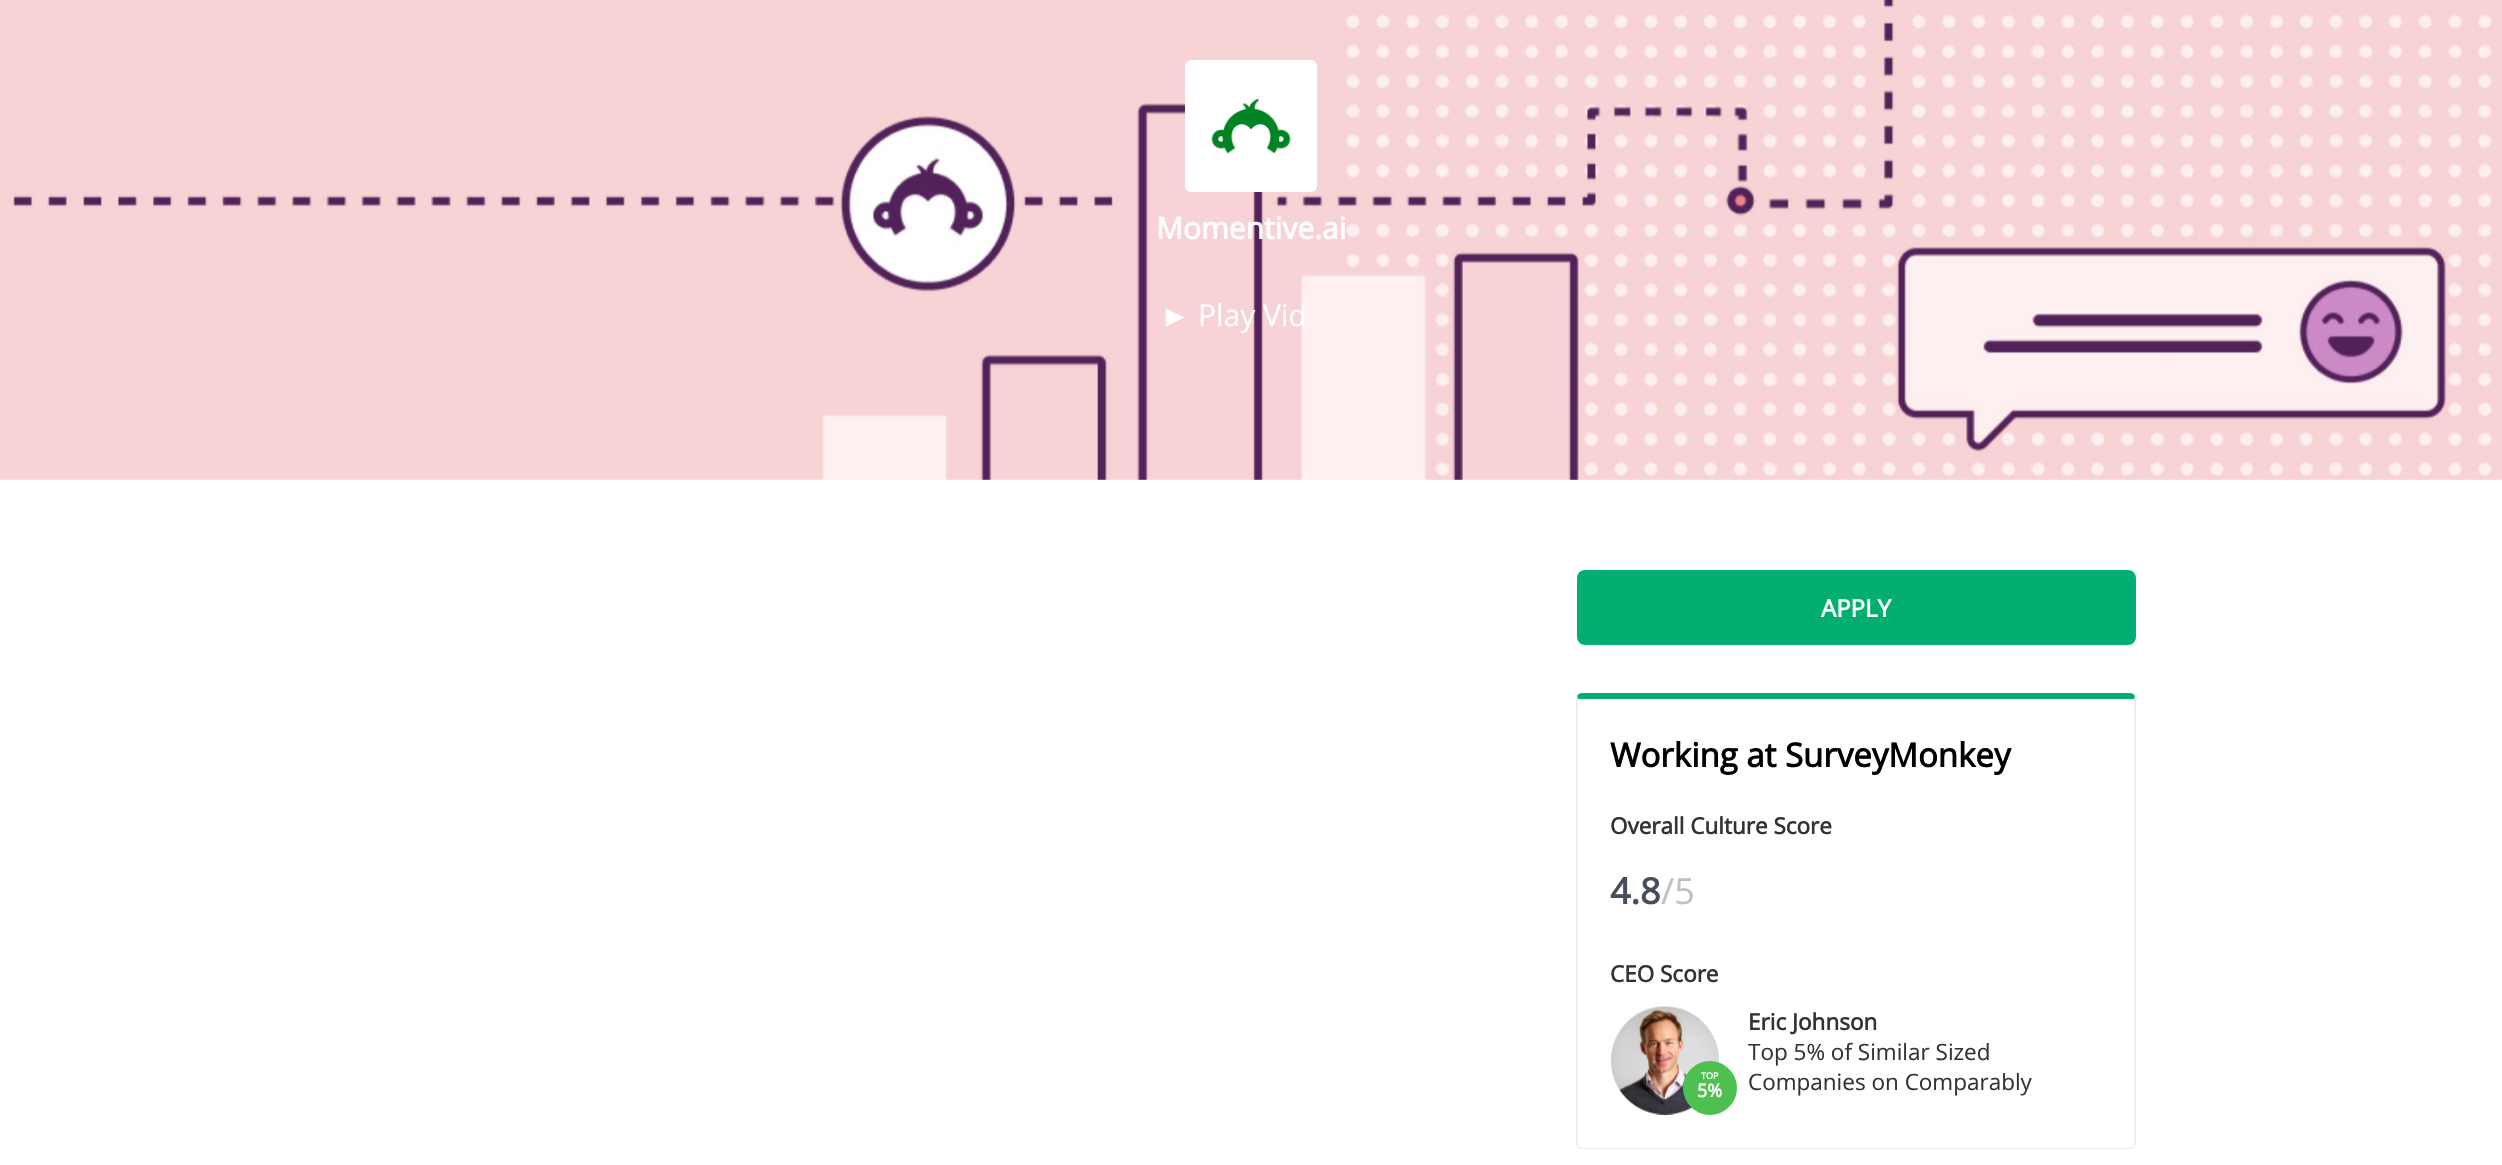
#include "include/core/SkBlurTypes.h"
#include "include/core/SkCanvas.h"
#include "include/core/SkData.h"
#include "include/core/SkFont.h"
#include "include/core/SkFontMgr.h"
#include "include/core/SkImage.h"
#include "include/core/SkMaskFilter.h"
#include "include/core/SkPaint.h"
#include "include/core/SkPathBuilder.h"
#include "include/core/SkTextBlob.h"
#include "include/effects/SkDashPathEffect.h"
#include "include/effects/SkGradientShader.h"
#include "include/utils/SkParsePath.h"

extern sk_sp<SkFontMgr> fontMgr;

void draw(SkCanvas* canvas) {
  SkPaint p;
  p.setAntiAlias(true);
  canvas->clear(SK_ColorWHITE);
  canvas->drawImageRect(SkImages::DeferredFromEncodedData(SkData::MakeFromFileName("images/1.png")), SkRect::MakeLTRB(0, 0, 2502, 480), SkSamplingOptions());
  p.setColor(SK_ColorWHITE);
  canvas->drawRoundRect(SkRect::MakeLTRB(1188, 63, 1314, 189), 3, 3, p);
  p.setStyle(SkPaint::kStroke_Style);
  p.setStrokeWidth(6);
  canvas->drawRoundRect(SkRect::MakeLTRB(1188, 63, 1314, 189), 3, 3, p);
  canvas->drawImageRect(SkImages::DeferredFromEncodedData(SkData::MakeFromFileName("images/2.png")), SkRect::MakeLTRB(1211, 98, 1291, 154), SkSamplingOptions());
  p.setStyle(SkPaint::kFill_Style);
  p.setColor(SkColorSetRGB(4, 174, 112));
  canvas->drawRoundRect(SkRect::MakeLTRB(1577, 570, 2136, 645), 8, 8, p);
  canvas->drawPath(SkPathBuilder().moveTo(1582, 693).cubicTo(1580, 693, 1578, 694, 1577, 696).lineTo(1578, 699).lineTo(2134, 699).lineTo(2134, 701).lineTo(2135, 696).cubicTo(2134, 694, 2132, 693, 2130, 693).close().detach(), p);
  p.setColor(SkColorSetRGB(237, 237, 237));
  canvas->drawPath(SkPathBuilder().moveTo(2136, 1143).lineTo(2136, 699).lineTo(2135, 696).lineTo(2134, 701).lineTo(2134, 1143).lineTo(2133, 1146).lineTo(2134, 1147).cubicTo(2135, 1146, 2136, 1144, 2136, 1143).close().detach(), p);
  canvas->drawPath(SkPathBuilder().moveTo(1582, 1149).lineTo(2130, 1149).cubicTo(2132, 1149, 2133, 1148, 2134, 1147).lineTo(2133, 1146).cubicTo(2132, 1147, 2131, 1148, 2130, 1148).lineTo(1582, 1148).cubicTo(1581, 1148, 1580, 1147, 1579, 1146).lineTo(1578, 1147).cubicTo(1579, 1148, 1581, 1149, 1582, 1149).close().detach(), p);
  canvas->drawPath(SkPathBuilder().moveTo(1576, 697).lineTo(1577, 696).lineTo(1578, 699).lineTo(1578, 1143).cubicTo(1578, 1144, 1578, 1145, 1579, 1146).lineTo(1578, 1147).lineTo(1576, 1145).close().detach(), p);
  p.setColor(SkColorSetRGB(238, 238, 238));
  canvas->drawCircle(1665, 1061, 54, p);
  canvas->drawImageRect(SkImages::DeferredFromEncodedData(SkData::MakeFromFileName("images/3.png")), SkRect::MakeLTRB(1611, 1006, 1719, 1115), SkSamplingOptions());
  p.setColor(SkColorSetRGB(77, 192, 79));
  canvas->drawCircle(1710, 1088, 27, p);
  SkFont font1(fontMgr->matchFamilyStyle("Open Sans", SkFontStyle::Bold()), 30);
  font1.setSubpixel(true);
  p.setColor(SK_ColorWHITE);
  canvas->drawString("Momentive.ai", 1156, 239, font1, p);
  SkFont font2(fontMgr->matchFamilyStyle("Liberation Sans", SkFontStyle::Normal()), 30);
  font2.setSubpixel(true);
  canvas->drawString("►", 1160, 326, font2, p);
  SkFont font3(fontMgr->matchFamilyStyle("Open Sans", SkFontStyle::Normal()), 30);
  font3.setSubpixel(true);
  canvas->drawString("Play Vid", 1198, 326, font3, p);
  SkFont font4(fontMgr->matchFamilyStyle("Open Sans", SkFontStyle::Bold()), 24);
  font4.setSubpixel(true);
  canvas->drawString("APPLY", 1821, 617, font4, p);
  SkFont font5(fontMgr->matchFamilyStyle("Open Sans", SkFontStyle::Bold()), 33);
  font5.setSubpixel(true);
  p.setColor(SK_ColorBLACK);
  canvas->drawString("Working at SurveyMonkey", 1610, 767, font5, p);
  SkFont font6(fontMgr->matchFamilyStyle("Open Sans", SkFontStyle::Bold()), 22.5f);
  font6.setSubpixel(true);
  p.setColor(SkColorSetRGB(51, 51, 51));
  canvas->drawString("Overall Culture Score", 1610, 834, font6, p);
  SkFont font7(fontMgr->matchFamilyStyle("Open Sans", SkFontStyle::Bold()), 36);
  font7.setSubpixel(true);
  p.setColor(SkColorSetRGB(70, 77, 93));
  canvas->drawString("4.8", 1610, 904, font7, p);
  SkFont font8(fontMgr->matchFamilyStyle("Open Sans", SkFontStyle::Normal()), 36);
  font8.setSubpixel(true);
  p.setColor(SkColorSetRGB(192, 192, 192));
  canvas->drawString("/5", 1661, 904, font8, p);
  p.setColor(SkColorSetRGB(51, 51, 51));
  canvas->drawString("CEO Score", 1610, 982, font6, p);
  SkFont font9(fontMgr->matchFamilyStyle("Open Sans", SkFontStyle::Bold()), 9);
  font9.setSubpixel(true);
  p.setColor(SK_ColorWHITE);
  canvas->drawString("TOP", 1701, 1079, font9, p);
  SkFont font10(fontMgr->matchFamilyStyle("Open Sans", SkFontStyle::Bold()), 18);
  font10.setSubpixel(true);
  canvas->drawString("5%", 1697, 1097, font10, p);
  p.setColor(SkColorSetRGB(51, 51, 51));
  canvas->drawString("Eric Johnson", 1748, 1030, font6, p);
  SkFont font11(fontMgr->matchFamilyStyle("Open Sans", SkFontStyle::Normal()), 22.5f);
  font11.setSubpixel(true);
  canvas->drawString("Top 5% of Similar Sized", 1748, 1060, font11, p);
  canvas->drawString("Companies on Comparably", 1748, 1090, font11, p);
}
